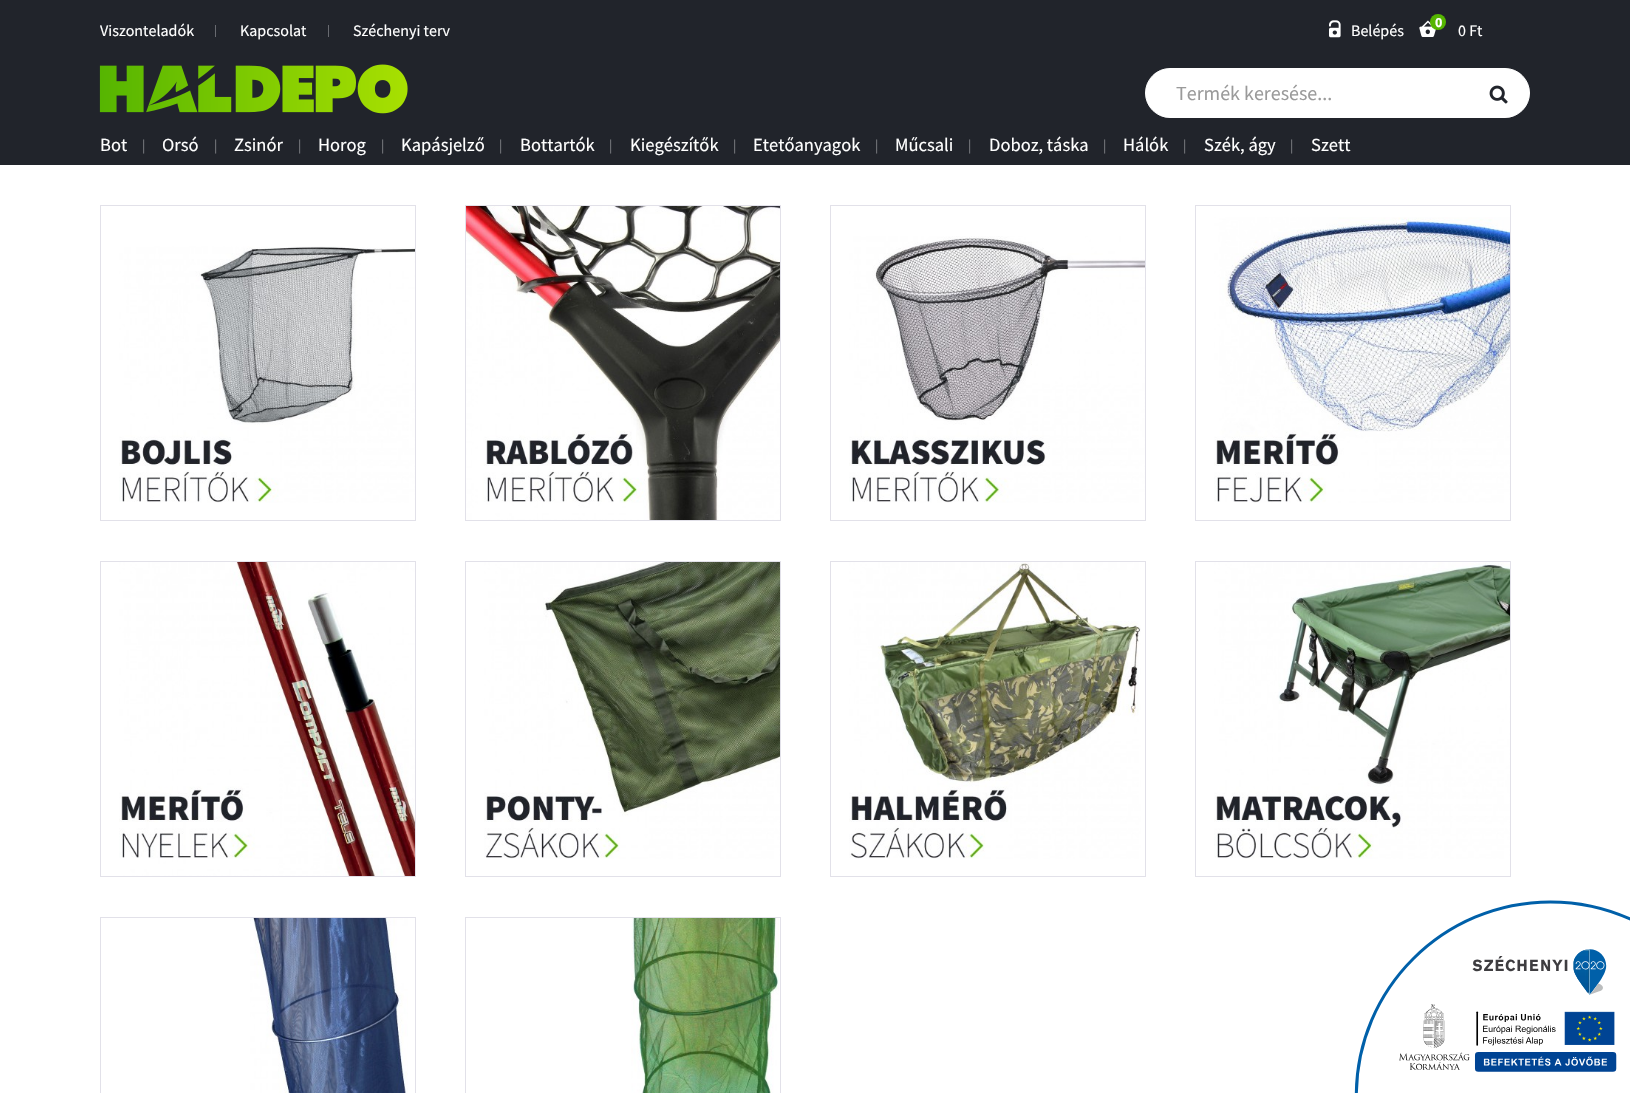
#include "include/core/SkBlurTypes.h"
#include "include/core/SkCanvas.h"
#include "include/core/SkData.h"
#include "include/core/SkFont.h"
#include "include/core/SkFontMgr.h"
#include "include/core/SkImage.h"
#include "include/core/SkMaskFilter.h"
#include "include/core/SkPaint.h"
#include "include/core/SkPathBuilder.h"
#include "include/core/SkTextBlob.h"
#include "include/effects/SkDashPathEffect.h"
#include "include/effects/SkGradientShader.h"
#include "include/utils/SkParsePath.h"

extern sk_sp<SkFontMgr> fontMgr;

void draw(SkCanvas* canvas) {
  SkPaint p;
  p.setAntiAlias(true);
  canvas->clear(SK_ColorWHITE);
  p.setColor(SkColorSetRGB(33, 36, 43));
  canvas->drawRect(SkRect::MakeLTRB(0, 0, 1630, 165), p);
  canvas->drawImageRect(SkImages::DeferredFromEncodedData(SkData::MakeFromFileName("images/1.png")), SkRect::MakeLTRB(1329, 20, 1341, 38), SkSamplingOptions());
  canvas->drawImageRect(SkImages::DeferredFromEncodedData(SkData::MakeFromFileName("images/2.png")), SkRect::MakeLTRB(1419, 20, 1436, 37), SkSamplingOptions());
  p.setColor(SkColorSetRGB(85, 181, 0));
  canvas->drawCircle(1438, 22, 8, p);
  canvas->drawImageRect(SkImages::DeferredFromEncodedData(SkData::MakeFromFileName("images/3.png")), SkRect::MakeLTRB(99, 64, 408, 114), SkSamplingOptions());
  p.setColor(SK_ColorWHITE);
  canvas->drawRoundRect(SkRect::MakeLTRB(1145.5f, 68.5f, 1529.5f, 117.5f), 24.5f, 24.5f, p);
  p.setStyle(SkPaint::kStroke_Style);
  p.setStrokeWidth(1);
  canvas->drawRoundRect(SkRect::MakeLTRB(1145.5f, 68.5f, 1529.5f, 117.5f), 24.5f, 24.5f, p);
  canvas->drawImageRect(SkImages::DeferredFromEncodedData(SkData::MakeFromFileName("images/4.png")), SkRect::MakeLTRB(1489, 85, 1508, 104), SkSamplingOptions());
  p.setColor(SkColorSetRGB(226, 225, 233));
  canvas->drawRect(SkRect::MakeLTRB(100.5f, 205.5f, 415.5f, 520.5f), p);
  canvas->drawImageRect(SkImages::DeferredFromEncodedData(SkData::MakeFromFileName("images/5.png")), SkRect::MakeLTRB(119, 246, 415, 503), SkSamplingOptions());
  canvas->drawRect(SkRect::MakeLTRB(465.5f, 205.5f, 780.5f, 520.5f), p);
  canvas->drawImageRect(SkImages::DeferredFromEncodedData(SkData::MakeFromFileName("images/6.png")), SkRect::MakeLTRB(466, 206, 780, 520), SkSamplingOptions());
  canvas->drawRect(SkRect::MakeLTRB(830.5f, 205.5f, 1145.5f, 520.5f), p);
  canvas->drawImageRect(SkImages::DeferredFromEncodedData(SkData::MakeFromFileName("images/7.png")), SkRect::MakeLTRB(849, 236, 1145, 503), SkSamplingOptions());
  canvas->drawRect(SkRect::MakeLTRB(1195.5f, 205.5f, 1510.5f, 520.5f), p);
  canvas->drawImageRect(SkImages::DeferredFromEncodedData(SkData::MakeFromFileName("images/8.png")), SkRect::MakeLTRB(1214, 217, 1510, 503), SkSamplingOptions());
  canvas->drawRect(SkRect::MakeLTRB(100.5f, 561.5f, 415.5f, 876.5f), p);
  canvas->drawImageRect(SkImages::DeferredFromEncodedData(SkData::MakeFromFileName("images/9.png")), SkRect::MakeLTRB(119, 562, 415, 876), SkSamplingOptions());
  canvas->drawRect(SkRect::MakeLTRB(465.5f, 561.5f, 780.5f, 876.5f), p);
  canvas->drawImageRect(SkImages::DeferredFromEncodedData(SkData::MakeFromFileName("images/10.png")), SkRect::MakeLTRB(484, 562, 780, 859), SkSamplingOptions());
  canvas->drawRect(SkRect::MakeLTRB(830.5f, 561.5f, 1145.5f, 876.5f), p);
  canvas->drawImageRect(SkImages::DeferredFromEncodedData(SkData::MakeFromFileName("images/11.png")), SkRect::MakeLTRB(849, 562, 1141, 859), SkSamplingOptions());
  canvas->drawRect(SkRect::MakeLTRB(1195.5f, 561.5f, 1510.5f, 876.5f), p);
  canvas->drawImageRect(SkImages::DeferredFromEncodedData(SkData::MakeFromFileName("images/12.png")), SkRect::MakeLTRB(1214, 562, 1510, 859), SkSamplingOptions());
  canvas->drawRect(SkRect::MakeLTRB(100.5f, 917.5f, 415.5f, 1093.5f), p);
  canvas->drawImageRect(SkImages::DeferredFromEncodedData(SkData::MakeFromFileName("images/13.png")), SkRect::MakeLTRB(250, 918, 408, 1093), SkSamplingOptions());
  canvas->drawRect(SkRect::MakeLTRB(465.5f, 917.5f, 780.5f, 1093.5f), p);
  canvas->drawImageRect(SkImages::DeferredFromEncodedData(SkData::MakeFromFileName("images/14.png")), SkRect::MakeLTRB(631, 918, 779, 1093), SkSamplingOptions());
  canvas->drawImageRect(SkImages::DeferredFromEncodedData(SkData::MakeFromFileName("images/15.png")), SkRect::MakeLTRB(1354, 900, 1630, 1093), SkSamplingOptions());
  SkFont font1(fontMgr->matchFamilyStyle("Source Sans Pro", SkFontStyle::Normal()), 16);
  font1.setSubpixel(true);
  p.setStyle(SkPaint::kFill_Style);
  p.setColor(SK_ColorWHITE);
  canvas->drawString("Viszonteladók", 100, 36, font1, p);
  SkFont font2(fontMgr->matchFamilyStyle("Source Sans Pro", SkFontStyle::Normal()), 12);
  font2.setSubpixel(true);
  p.setColor(SkColorSetRGB(126, 128, 133));
  canvas->drawString("|", 214, 34, font2, p);
  p.setColor(SK_ColorWHITE);
  canvas->drawString("Kapcsolat", 240, 36, font1, p);
  p.setColor(SkColorSetRGB(126, 128, 133));
  canvas->drawString("|", 327, 34, font2, p);
  p.setColor(SK_ColorWHITE);
  canvas->drawString("Széchenyi terv", 353, 36, font1, p);
  canvas->drawString("Belépés", 1351, 36, font1, p);
  SkFont font3(fontMgr->matchFamilyStyle("Source Sans Pro", SkFontStyle::Bold()), 14);
  font3.setSubpixel(true);
  canvas->drawString("0", 1435, 27, font3, p);
  canvas->drawString("0 Ft", 1458, 36, font1, p);
  SkFont font4(fontMgr->matchFamilyStyle("Source Sans Pro", SkFontStyle::Normal()), 20);
  font4.setSubpixel(true);
  p.setColor(SkColorSetRGB(154, 154, 154));
  canvas->drawString("Termék keresése...", 1176, 100, font4, p);
  SkFont font5(fontMgr->matchFamilyStyle("Source Sans Pro", SkFontStyle::Normal()), 18.5f);
  font5.setSubpixel(true);
  p.setColor(SK_ColorWHITE);
  canvas->drawString("Bot", 100, 151, font5, p);
  SkFont font6(fontMgr->matchFamilyStyle("Source Sans Pro", SkFontStyle::Normal()), 14);
  font6.setSubpixel(true);
  p.setColor(SkColorSetRGB(126, 128, 133));
  canvas->drawString("|", 142, 150, font6, p);
  p.setColor(SK_ColorWHITE);
  canvas->drawString("Orsó", 162, 151, font5, p);
  p.setColor(SkColorSetRGB(126, 128, 133));
  canvas->drawString("|", 214, 150, font6, p);
  p.setColor(SK_ColorWHITE);
  canvas->drawString("Zsinór", 234, 151, font5, p);
  p.setColor(SkColorSetRGB(126, 128, 133));
  canvas->drawString("|", 298, 150, font6, p);
  p.setColor(SK_ColorWHITE);
  canvas->drawString("Horog", 318, 151, font5, p);
  p.setColor(SkColorSetRGB(126, 128, 133));
  canvas->drawString("|", 381, 150, font6, p);
  p.setColor(SK_ColorWHITE);
  canvas->drawString("Kapásjelző", 401, 151, font5, p);
  p.setColor(SkColorSetRGB(126, 128, 133));
  canvas->drawString("|", 499, 150, font6, p);
  p.setColor(SK_ColorWHITE);
  canvas->drawString("Bottartók", 520, 151, font5, p);
  p.setColor(SkColorSetRGB(126, 128, 133));
  canvas->drawString("|", 609, 150, font6, p);
  p.setColor(SK_ColorWHITE);
  canvas->drawString("Kiegészítők", 630, 151, font5, p);
  p.setColor(SkColorSetRGB(126, 128, 133));
  canvas->drawString("|", 733, 150, font6, p);
  p.setColor(SK_ColorWHITE);
  canvas->drawString("Etetőanyagok", 753, 151, font5, p);
  p.setColor(SkColorSetRGB(126, 128, 133));
  canvas->drawString("|", 875, 150, font6, p);
  p.setColor(SK_ColorWHITE);
  canvas->drawString("Műcsali", 895, 151, font5, p);
  p.setColor(SkColorSetRGB(126, 128, 133));
  canvas->drawString("|", 968, 150, font6, p);
  p.setColor(SK_ColorWHITE);
  canvas->drawString("Doboz, táska", 989, 151, font5, p);
  p.setColor(SkColorSetRGB(126, 128, 133));
  canvas->drawString("|", 1103, 150, font6, p);
  p.setColor(SK_ColorWHITE);
  canvas->drawString("Hálók", 1123, 151, font5, p);
  p.setColor(SkColorSetRGB(126, 128, 133));
  canvas->drawString("|", 1183, 150, font6, p);
  p.setColor(SK_ColorWHITE);
  canvas->drawString("Szék, ágy", 1204, 151, font5, p);
  p.setColor(SkColorSetRGB(126, 128, 133));
  canvas->drawString("|", 1290, 150, font6, p);
  p.setColor(SK_ColorWHITE);
  canvas->drawString("Szett", 1311, 151, font5, p);
}
